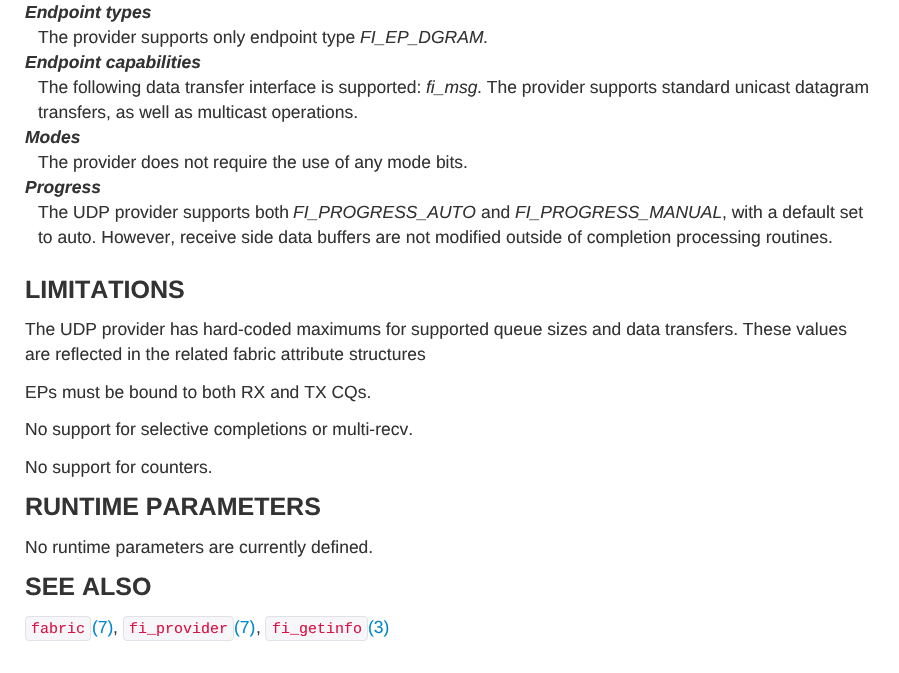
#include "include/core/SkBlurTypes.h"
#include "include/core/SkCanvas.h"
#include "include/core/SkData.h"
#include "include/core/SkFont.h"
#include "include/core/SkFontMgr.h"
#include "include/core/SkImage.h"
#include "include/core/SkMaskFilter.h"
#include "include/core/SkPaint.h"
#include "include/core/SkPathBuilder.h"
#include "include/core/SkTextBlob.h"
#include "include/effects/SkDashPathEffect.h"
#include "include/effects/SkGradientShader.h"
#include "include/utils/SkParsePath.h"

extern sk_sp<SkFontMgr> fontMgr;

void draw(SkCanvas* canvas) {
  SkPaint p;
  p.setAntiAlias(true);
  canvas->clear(SK_ColorWHITE);
  p.setColor(SkColorSetRGB(247, 247, 249));
  canvas->drawRoundRect(SkRect::MakeLTRB(25.5f, 616.5f, 90.5f, 640.5f), 3.5f, 3.5f, p);
  p.setStyle(SkPaint::kStroke_Style);
  p.setStrokeWidth(1);
  p.setColor(SkColorSetRGB(225, 225, 232));
  canvas->drawRoundRect(SkRect::MakeLTRB(25.5f, 616.5f, 90.5f, 640.5f), 3.5f, 3.5f, p);
  p.setStyle(SkPaint::kFill_Style);
  p.setColor(SkColorSetRGB(247, 247, 249));
  canvas->drawRoundRect(SkRect::MakeLTRB(123.5f, 616.5f, 233.5f, 640.5f), 3.5f, 3.5f, p);
  p.setStyle(SkPaint::kStroke_Style);
  p.setColor(SkColorSetRGB(225, 225, 232));
  canvas->drawRoundRect(SkRect::MakeLTRB(123.5f, 616.5f, 233.5f, 640.5f), 3.5f, 3.5f, p);
  p.setStyle(SkPaint::kFill_Style);
  p.setColor(SkColorSetRGB(247, 247, 249));
  canvas->drawRoundRect(SkRect::MakeLTRB(265.5f, 616.5f, 367.5f, 640.5f), 3.5f, 3.5f, p);
  p.setStyle(SkPaint::kStroke_Style);
  p.setColor(SkColorSetRGB(225, 225, 232));
  canvas->drawRoundRect(SkRect::MakeLTRB(265.5f, 616.5f, 367.5f, 640.5f), 3.5f, 3.5f, p);
  SkFont font1(fontMgr->matchFamilyStyle("Liberation Sans", SkFontStyle::BoldItalic()), 17.5f);
  font1.setSubpixel(true);
  p.setStyle(SkPaint::kFill_Style);
  p.setColor(SkColorSetRGB(51, 51, 51));
  canvas->drawString("Endpoint types", 25, 18, font1, p);
  SkFont font2(fontMgr->matchFamilyStyle("Liberation Sans", SkFontStyle::Normal()), 17.5f);
  font2.setSubpixel(true);
  canvas->drawString("The provider supports only endpoint type", 38, 43, font2, p);
  SkFont font3(fontMgr->matchFamilyStyle("Liberation Sans", SkFontStyle::Italic()), 17.5f);
  font3.setSubpixel(true);
  canvas->drawString("FI_EP_DGRAM", 360, 43, font3, p);
  canvas->drawString(".", 483, 43, font2, p);
  canvas->drawString("Endpoint capabilities", 25, 68, font1, p);
  canvas->drawString("The following data transfer interface is supported:", 38, 93, font2, p);
  canvas->drawString("fi_msg", 426, 93, font3, p);
  canvas->drawString(". The provider supports standard unicast datagram", 477, 93, font2, p);
  canvas->drawString("transfers, as well as multicast operations.", 38, 118, font2, p);
  canvas->drawString("Modes", 25, 143, font1, p);
  canvas->drawString("The provider does not require the use of any mode bits.", 38, 168, font2, p);
  canvas->drawString("Progress", 25, 193, font1, p);
  canvas->drawString("The UDP provider supports both", 38, 218, font2, p);
  canvas->drawString("FI_PROGRESS_AUTO", 293, 218, font3, p);
  canvas->drawString("and", 481, 218, font2, p);
  canvas->drawString("FI_PROGRESS_MANUAL", 515, 218, font3, p);
  canvas->drawString(", with a default set", 722, 218, font2, p);
  canvas->drawString("to auto. However, receive side data buffers are not modified outside of completion processing routines.", 38, 243, font2, p);
  SkFont font4(fontMgr->matchFamilyStyle("Liberation Sans", SkFontStyle::Bold()), 25);
  font4.setSubpixel(true);
  canvas->drawString("LIMITATIONS", 25, 298, font4, p);
  canvas->drawString("The UDP provider has hard-coded maximums for supported queue sizes and data transfers. These values", 25, 335, font2, p);
  canvas->drawString("are reflected in the related fabric attribute structures", 25, 360, font2, p);
  canvas->drawString("EPs must be bound to both RX and TX CQs.", 25, 398, font2, p);
  canvas->drawString("No support for selective completions or multi-recv.", 25, 435, font2, p);
  canvas->drawString("No support for counters.", 25, 473, font2, p);
  canvas->drawString("RUNTIME PARAMETERS", 25, 515, font4, p);
  canvas->drawString("No runtime parameters are currently defined.", 25, 553, font2, p);
  canvas->drawString("SEE ALSO", 25, 595, font4, p);
  SkFont font5(fontMgr->matchFamilyStyle("Liberation Mono", SkFontStyle::Normal()), 15);
  font5.setSubpixel(true);
  p.setColor(SkColorSetRGB(221, 17, 68));
  canvas->drawString("fabric", 31, 633, font5, p);
  p.setColor(SkColorSetRGB(0, 136, 204));
  canvas->drawString("(7)", 92, 633, font2, p);
  p.setColor(SkColorSetRGB(51, 51, 51));
  canvas->drawString(",", 113, 633, font2, p);
  p.setColor(SkColorSetRGB(221, 17, 68));
  canvas->drawString("fi_provider", 129, 633, font5, p);
  p.setColor(SkColorSetRGB(0, 136, 204));
  canvas->drawString("(7)", 234, 633, font2, p);
  p.setColor(SkColorSetRGB(51, 51, 51));
  canvas->drawString(",", 256, 633, font2, p);
  p.setColor(SkColorSetRGB(221, 17, 68));
  canvas->drawString("fi_getinfo", 272, 633, font5, p);
  p.setColor(SkColorSetRGB(0, 136, 204));
  canvas->drawString("(3)", 368, 633, font2, p);
}
